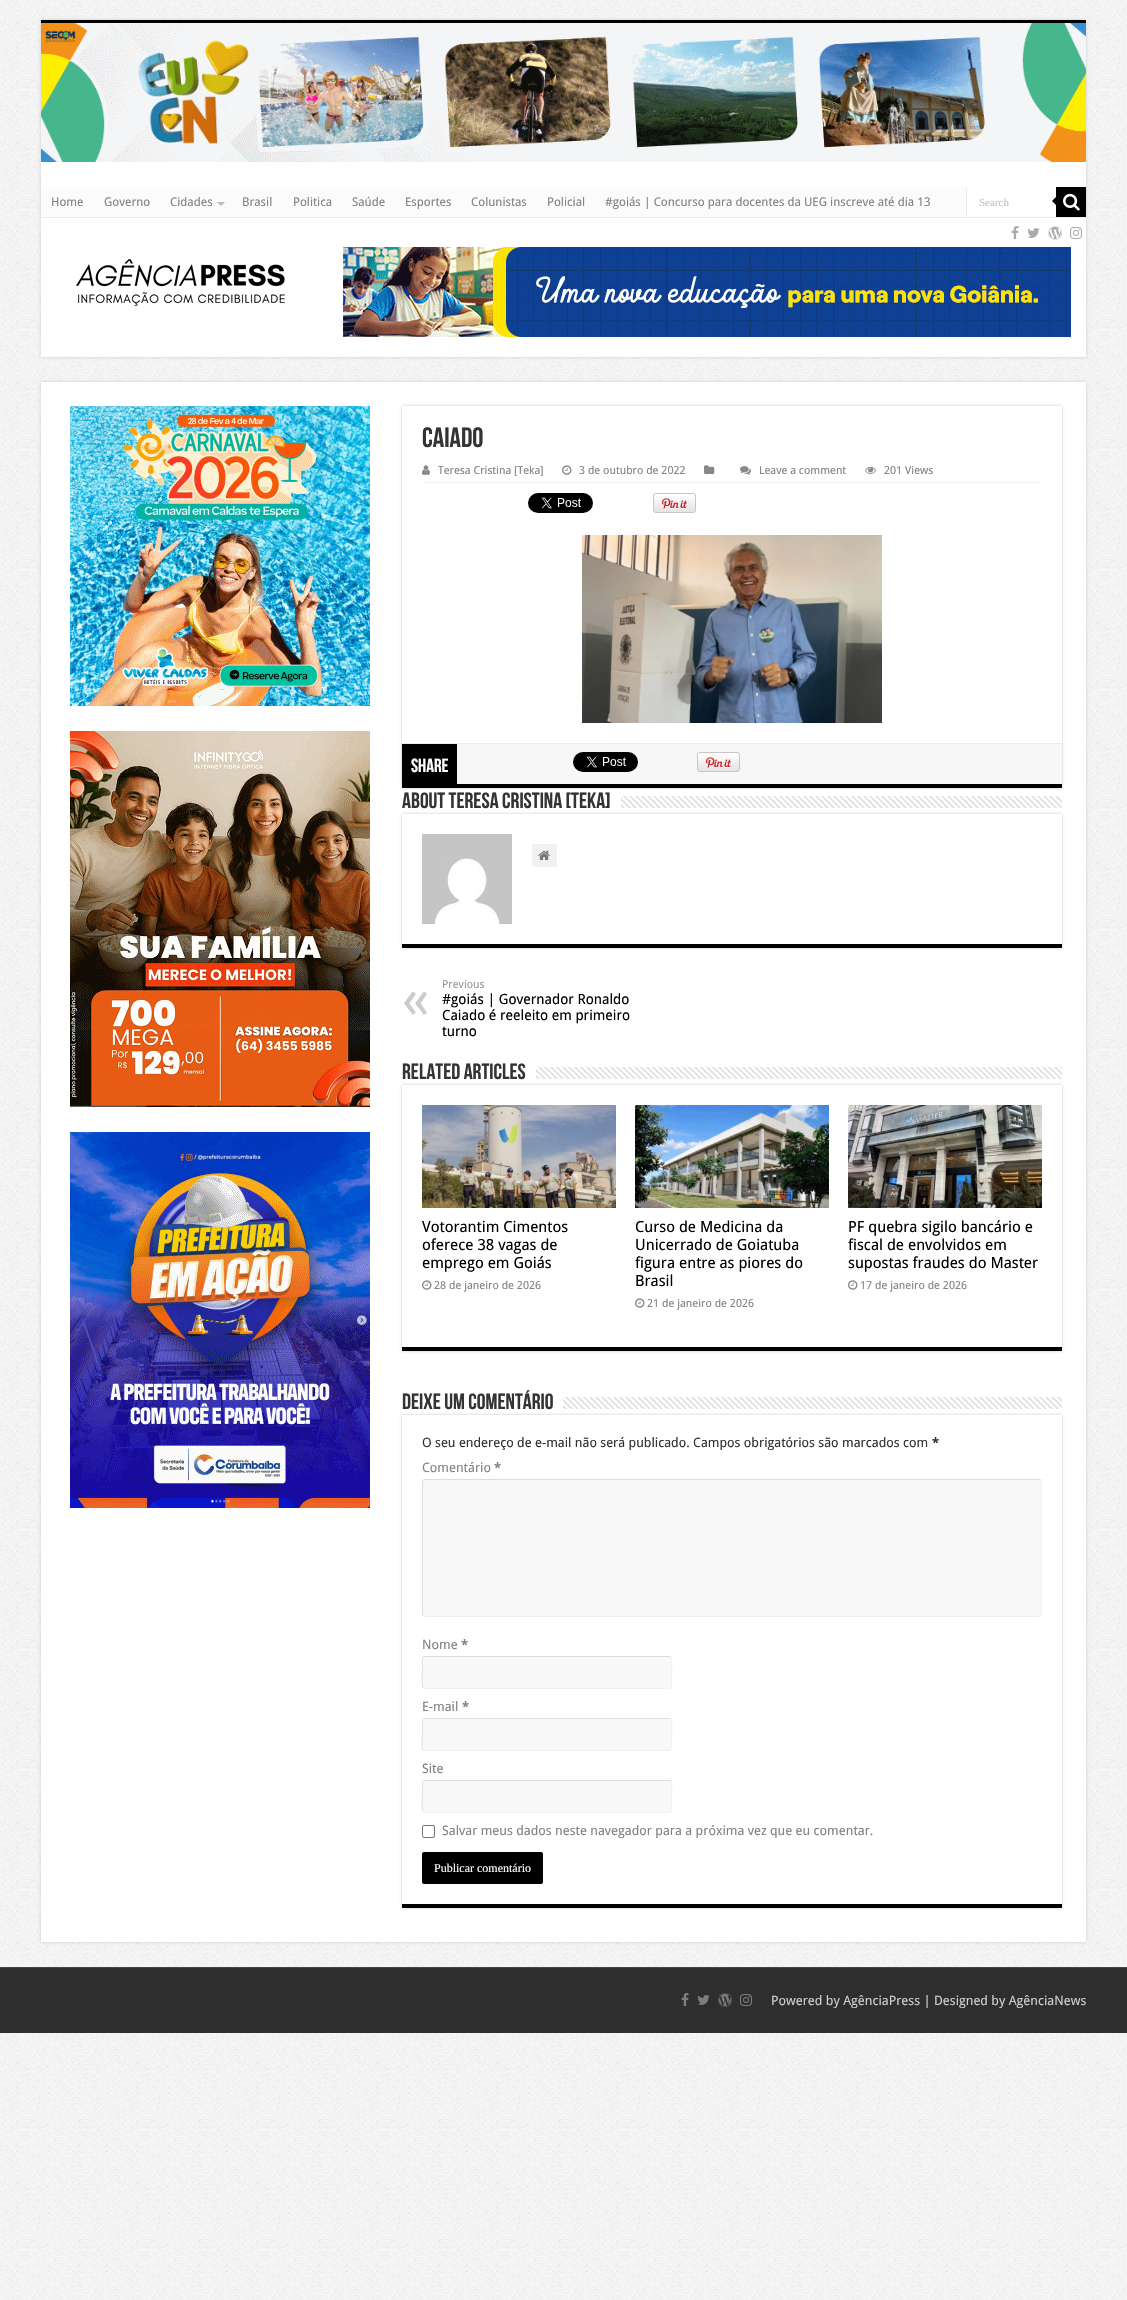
#include "include/core/SkBlurTypes.h"
#include "include/core/SkCanvas.h"
#include "include/core/SkData.h"
#include "include/core/SkFont.h"
#include "include/core/SkFontMgr.h"
#include "include/core/SkImage.h"
#include "include/core/SkMaskFilter.h"
#include "include/core/SkPaint.h"
#include "include/core/SkPathBuilder.h"
#include "include/core/SkTextBlob.h"
#include "include/effects/SkDashPathEffect.h"
#include "include/effects/SkGradientShader.h"
#include "include/utils/SkParsePath.h"

extern sk_sp<SkFontMgr> fontMgr;

void draw(SkCanvas* canvas) {
  SkPaint p;
  p.setAntiAlias(true);
  canvas->clear(SK_ColorWHITE);
  canvas->drawImageRect(SkImages::DeferredFromEncodedData(SkData::MakeFromFileName("images/1.png")), SkRect::MakeLTRB(0, 0, 1127, 2300), SkSamplingOptions());
  p.setColor(SkColorSetRGB(202, 202, 202));
  p.setMaskFilter(SkMaskFilter::MakeBlur(kNormal_SkBlurStyle, 1.5f));
  canvas->drawRect(SkRect::MakeLTRB(41, 20, 1086, 357), p);
  p.setMaskFilter(nullptr);
  p.setColor(SK_ColorWHITE);
  canvas->drawRect(SkRect::MakeLTRB(41, 162, 1086, 357), p);
  p.setColor(SK_ColorBLACK);
  canvas->drawRect(SkRect::MakeLTRB(41, 20, 1086, 23), p);
  canvas->drawImageRect(SkImages::DeferredFromEncodedData(SkData::MakeFromFileName("images/2.png")), SkRect::MakeLTRB(41, 23, 1086, 162), SkSamplingOptions());
  p.setColor(SkColorSetRGB(251, 251, 251));
  canvas->drawRect(SkRect::MakeLTRB(41, 187, 1056, 217), p);
  p.setColor(SkColorSetRGB(236, 236, 236));
  canvas->drawRect(SkRect::MakeLTRB(41, 217, 1086, 218), p);
  p.setColor(SkColorSetRGB(187, 187, 187));
  canvas->drawPath(SkPathBuilder().moveTo(217, 202).lineTo(225, 202).lineTo(221, 206).close().detach(), p);
  p.setColor(SK_ColorWHITE);
  canvas->drawRect(SkRect::MakeLTRB(967, 187, 1056, 216), p);
  p.setColor(SkColorSetRGB(236, 236, 236));
  canvas->drawRect(SkRect::MakeLTRB(966, 187, 967, 216), p);
  p.setColor(SK_ColorBLACK);
  canvas->drawRect(SkRect::MakeLTRB(1056, 187, 1086, 217), p);
  canvas->drawImageRect(SkImages::DeferredFromEncodedData(SkData::MakeFromFileName("images/3.png")), SkRect::MakeLTRB(1063, 193, 1080, 211), SkSamplingOptions());
  canvas->drawPath(SkPathBuilder().moveTo(1056, 197).lineTo(1056, 205).lineTo(1052, 201).close().detach(), p);
  canvas->drawImageRect(SkImages::DeferredFromEncodedData(SkData::MakeFromFileName("images/4.png")), SkRect::MakeLTRB(1011, 226, 1019, 239), SkSamplingOptions());
  canvas->drawImageRect(SkImages::DeferredFromEncodedData(SkData::MakeFromFileName("images/5.png")), SkRect::MakeLTRB(1027, 228, 1040, 238), SkSamplingOptions());
  canvas->drawImageRect(SkImages::DeferredFromEncodedData(SkData::MakeFromFileName("images/6.png")), SkRect::MakeLTRB(1048, 226, 1062, 240), SkSamplingOptions());
  canvas->drawImageRect(SkImages::DeferredFromEncodedData(SkData::MakeFromFileName("images/7.png")), SkRect::MakeLTRB(1070, 227, 1082, 239), SkSamplingOptions());
  canvas->drawImageRect(SkImages::DeferredFromEncodedData(SkData::MakeFromFileName("images/8.png")), SkRect::MakeLTRB(76, 259, 285, 307), SkSamplingOptions());
  canvas->drawImageRect(SkImages::DeferredFromEncodedData(SkData::MakeFromFileName("images/9.png")), SkRect::MakeLTRB(343, 247, 1071, 337), SkSamplingOptions());
  p.setColor(SkColorSetRGB(202, 202, 202));
  p.setMaskFilter(SkMaskFilter::MakeBlur(kNormal_SkBlurStyle, 1.5f));
  canvas->drawRect(SkRect::MakeLTRB(41, 382, 1086, 1942), p);
  p.setMaskFilter(nullptr);
  p.setColor(SK_ColorWHITE);
  canvas->drawRect(SkRect::MakeLTRB(41, 382, 1086, 1942), p);
  canvas->drawImageRect(SkImages::DeferredFromEncodedData(SkData::MakeFromFileName("images/10.png")), SkRect::MakeLTRB(70, 406, 370, 706), SkSamplingOptions());
  canvas->drawImageRect(SkImages::DeferredFromEncodedData(SkData::MakeFromFileName("images/11.png")), SkRect::MakeLTRB(70, 731, 370, 1107), SkSamplingOptions());
  canvas->drawImageRect(SkImages::DeferredFromEncodedData(SkData::MakeFromFileName("images/12.png")), SkRect::MakeLTRB(70, 1132, 370, 1508), SkSamplingOptions());
  canvas->save();
  canvas->clipPath(SkPathBuilder(SkPathFillType::kEvenOdd).moveTo(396, 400).lineTo(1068, 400).lineTo(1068, 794).lineTo(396, 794).close().moveTo(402, 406).lineTo(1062, 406).lineTo(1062, 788).lineTo(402, 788).close().detach(), true);
  p.setColor(SkColorSetRGB(202, 202, 202));
  p.setMaskFilter(SkMaskFilter::MakeBlur(kNormal_SkBlurStyle, 1.5f));
  canvas->drawRect(SkRect::MakeLTRB(402, 406, 1062, 788), p);
  p.setMaskFilter(nullptr);
  canvas->restore();
  p.setColor(SK_ColorBLACK);
  canvas->drawRect(SkRect::MakeLTRB(402, 784, 1062, 788), p);
  p.setColor(SkColorSetRGB(242, 242, 242));
  canvas->drawRect(SkRect::MakeLTRB(422, 482, 1042, 483), p);
  canvas->drawImageRect(SkImages::DeferredFromEncodedData(SkData::MakeFromFileName("images/13.png")), SkRect::MakeLTRB(422, 465, 430, 475), SkSamplingOptions());
  canvas->drawImageRect(SkImages::DeferredFromEncodedData(SkData::MakeFromFileName("images/14.png")), SkRect::MakeLTRB(562, 465, 572, 475), SkSamplingOptions());
  canvas->drawImageRect(SkImages::DeferredFromEncodedData(SkData::MakeFromFileName("images/15.png")), SkRect::MakeLTRB(704, 465, 715, 474), SkSamplingOptions());
  canvas->drawImageRect(SkImages::DeferredFromEncodedData(SkData::MakeFromFileName("images/16.png")), SkRect::MakeLTRB(740, 466, 751, 475), SkSamplingOptions());
  canvas->drawImageRect(SkImages::DeferredFromEncodedData(SkData::MakeFromFileName("images/17.png")), SkRect::MakeLTRB(865, 466, 876, 474), SkSamplingOptions());
  canvas->drawImageRect(SkImages::DeferredFromEncodedData(SkData::MakeFromFileName("images/18.png")), SkRect::MakeLTRB(528, 493, 593, 513), SkSamplingOptions());
  canvas->drawImageRect(SkImages::DeferredFromEncodedData(SkData::MakeFromFileName("images/19.png")), SkRect::MakeLTRB(653, 493, 696, 513), SkSamplingOptions());
  canvas->drawImageRect(SkImages::DeferredFromEncodedData(SkData::MakeFromFileName("images/20.png")), SkRect::MakeLTRB(582, 535, 882, 723), SkSamplingOptions());
  p.setColor(SkColorSetRGB(247, 247, 247));
  canvas->drawRect(SkRect::MakeLTRB(457, 744, 1062, 784), p);
  p.setColor(SkColorSetRGB(234, 234, 234));
  canvas->drawRect(SkRect::MakeLTRB(402, 743, 1062, 744), p);
  p.setColor(SK_ColorBLACK);
  canvas->drawRect(SkRect::MakeLTRB(402, 744, 457, 784), p);
  canvas->drawImageRect(SkImages::DeferredFromEncodedData(SkData::MakeFromFileName("images/21.png")), SkRect::MakeLTRB(573, 752, 638, 772), SkSamplingOptions());
  canvas->drawImageRect(SkImages::DeferredFromEncodedData(SkData::MakeFromFileName("images/22.png")), SkRect::MakeLTRB(697, 752, 740, 772), SkSamplingOptions());
  canvas->drawImageRect(SkImages::DeferredFromEncodedData(SkData::MakeFromFileName("images/23.png")), SkRect::MakeLTRB(621, 796, 1062, 808), SkSamplingOptions());
  canvas->save();
  canvas->clipPath(SkPathBuilder(SkPathFillType::kEvenOdd).moveTo(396, 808).lineTo(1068, 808).lineTo(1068, 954).lineTo(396, 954).close().moveTo(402, 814).lineTo(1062, 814).lineTo(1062, 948).lineTo(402, 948).close().detach(), true);
  p.setColor(SkColorSetRGB(202, 202, 202));
  p.setMaskFilter(SkMaskFilter::MakeBlur(kNormal_SkBlurStyle, 1.5f));
  canvas->drawRect(SkRect::MakeLTRB(402, 814, 1062, 948), p);
  p.setMaskFilter(nullptr);
  canvas->restore();
  p.setColor(SK_ColorBLACK);
  canvas->drawRect(SkRect::MakeLTRB(402, 944, 1062, 948), p);
  canvas->drawImageRect(SkImages::DeferredFromEncodedData(SkData::MakeFromFileName("images/24.png")), SkRect::MakeLTRB(422, 834, 512, 924), SkSamplingOptions());
  p.setColor(SkColorSetRGB(241, 241, 241));
  canvas->drawRoundRect(SkRect::MakeLTRB(532, 844, 557, 867), 2, 2, p);
  canvas->drawImageRect(SkImages::DeferredFromEncodedData(SkData::MakeFromFileName("images/25.png")), SkRect::MakeLTRB(538, 850, 550, 860), SkSamplingOptions());
  canvas->drawImageRect(SkImages::DeferredFromEncodedData(SkData::MakeFromFileName("images/26.png")), SkRect::MakeLTRB(536, 1067, 1062, 1079), SkSamplingOptions());
  canvas->save();
  canvas->clipPath(SkPathBuilder(SkPathFillType::kEvenOdd).moveTo(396, 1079).lineTo(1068, 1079).lineTo(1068, 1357).lineTo(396, 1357).close().moveTo(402, 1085).lineTo(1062, 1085).lineTo(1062, 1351).lineTo(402, 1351).close().detach(), true);
  p.setColor(SkColorSetRGB(202, 202, 202));
  p.setMaskFilter(SkMaskFilter::MakeBlur(kNormal_SkBlurStyle, 1.5f));
  canvas->drawRect(SkRect::MakeLTRB(402, 1085, 1062, 1351), p);
  p.setMaskFilter(nullptr);
  canvas->restore();
  p.setColor(SK_ColorBLACK);
  canvas->drawRect(SkRect::MakeLTRB(402, 1347, 1062, 1351), p);
  canvas->drawImageRect(SkImages::DeferredFromEncodedData(SkData::MakeFromFileName("images/27.png")), SkRect::MakeLTRB(422, 1105, 616, 1208), SkSamplingOptions());
  canvas->drawImageRect(SkImages::DeferredFromEncodedData(SkData::MakeFromFileName("images/14.png")), SkRect::MakeLTRB(422, 1280, 432, 1290), SkSamplingOptions());
  canvas->drawImageRect(SkImages::DeferredFromEncodedData(SkData::MakeFromFileName("images/28.png")), SkRect::MakeLTRB(635, 1105, 829, 1208), SkSamplingOptions());
  canvas->drawImageRect(SkImages::DeferredFromEncodedData(SkData::MakeFromFileName("images/14.png")), SkRect::MakeLTRB(635, 1298, 645, 1308), SkSamplingOptions());
  canvas->drawImageRect(SkImages::DeferredFromEncodedData(SkData::MakeFromFileName("images/29.png")), SkRect::MakeLTRB(848, 1105, 1042, 1208), SkSamplingOptions());
  canvas->drawImageRect(SkImages::DeferredFromEncodedData(SkData::MakeFromFileName("images/14.png")), SkRect::MakeLTRB(848, 1280, 858, 1290), SkSamplingOptions());
  canvas->drawImageRect(SkImages::DeferredFromEncodedData(SkData::MakeFromFileName("images/30.png")), SkRect::MakeLTRB(563, 1397, 1062, 1409), SkSamplingOptions());
  canvas->save();
  canvas->clipPath(SkPathBuilder(SkPathFillType::kEvenOdd).moveTo(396, 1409).lineTo(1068, 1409).lineTo(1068, 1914).lineTo(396, 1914).close().moveTo(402, 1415).lineTo(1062, 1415).lineTo(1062, 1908).lineTo(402, 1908).close().detach(), true);
  p.setColor(SkColorSetRGB(202, 202, 202));
  p.setMaskFilter(SkMaskFilter::MakeBlur(kNormal_SkBlurStyle, 1.5f));
  canvas->drawRect(SkRect::MakeLTRB(402, 1415, 1062, 1908), p);
  p.setMaskFilter(nullptr);
  canvas->restore();
  p.setColor(SK_ColorBLACK);
  canvas->drawRect(SkRect::MakeLTRB(402, 1904, 1062, 1908), p);
  p.setColor(SkColorSetRGB(249, 249, 249));
  canvas->drawRoundRect(SkRect::MakeLTRB(422, 1479, 1042, 1617), 3, 3, p);
  p.setStyle(SkPaint::kStroke_Style);
  p.setStrokeWidth(1);
  p.setColor(SkColorSetRGB(241, 241, 241));
  canvas->drawPath(SkPathBuilder().moveTo(1041, 1480).lineTo(1041.5f, 1482).lineTo(1041.5f, 1614).lineTo(1041, 1616).lineTo(1039, 1616.5f).lineTo(425, 1616.5f).lineTo(423, 1616).detach(), p);
  p.setColor(SkColorSetRGB(221, 221, 221));
  canvas->drawPath(SkPathBuilder().moveTo(423, 1616).lineTo(422.5f, 1614).lineTo(422.5f, 1482).lineTo(423, 1480).lineTo(425, 1479.5f).lineTo(1039, 1479.5f).lineTo(1041, 1480).detach(), p);
  p.setStyle(SkPaint::kFill_Style);
  p.setColor(SkColorSetRGB(249, 249, 249));
  canvas->drawRoundRect(SkRect::MakeLTRB(422, 1656, 672, 1689), 3, 3, p);
  p.setStyle(SkPaint::kStroke_Style);
  p.setColor(SkColorSetRGB(241, 241, 241));
  canvas->drawPath(SkPathBuilder().moveTo(671, 1657).cubicTo(672.5f, 1659, 671.5f, 1674, 671.5f, 1677).lineTo(671.5f, 1681.5f).cubicTo(671.5f, 1683.5f, 672.5f, 1688.5f, 669, 1688.5f).lineTo(424.5f, 1688.5f).lineTo(423, 1688).detach(), p);
  p.setColor(SkColorSetRGB(221, 221, 221));
  canvas->drawPath(SkPathBuilder().moveTo(423, 1688).cubicTo(421.5f, 1686, 422.5f, 1671, 422.5f, 1668).lineTo(422.5f, 1663.5f).cubicTo(422.5f, 1661.5f, 421.5f, 1656.5f, 425, 1656.5f).lineTo(669.5f, 1656.5f).lineTo(671, 1657).detach(), p);
  p.setStyle(SkPaint::kFill_Style);
  p.setColor(SkColorSetRGB(249, 249, 249));
  canvas->drawRoundRect(SkRect::MakeLTRB(422, 1718, 672, 1751), 3, 3, p);
  p.setStyle(SkPaint::kStroke_Style);
  p.setColor(SkColorSetRGB(241, 241, 241));
  canvas->drawPath(SkPathBuilder().moveTo(671, 1719).cubicTo(672.5f, 1721, 671.5f, 1736, 671.5f, 1739).lineTo(671.5f, 1743.5f).cubicTo(671.5f, 1745.5f, 672.5f, 1750.5f, 669, 1750.5f).lineTo(424.5f, 1750.5f).lineTo(423, 1750).detach(), p);
  p.setColor(SkColorSetRGB(221, 221, 221));
  canvas->drawPath(SkPathBuilder().moveTo(423, 1750).cubicTo(421.5f, 1748, 422.5f, 1733, 422.5f, 1730).lineTo(422.5f, 1725.5f).cubicTo(422.5f, 1723.5f, 421.5f, 1718.5f, 425, 1718.5f).lineTo(669.5f, 1718.5f).lineTo(671, 1719).detach(), p);
  p.setStyle(SkPaint::kFill_Style);
  p.setColor(SkColorSetRGB(249, 249, 249));
  canvas->drawRoundRect(SkRect::MakeLTRB(422, 1780, 672, 1813), 3, 3, p);
  p.setStyle(SkPaint::kStroke_Style);
  p.setColor(SkColorSetRGB(241, 241, 241));
  canvas->drawPath(SkPathBuilder().moveTo(671, 1781).cubicTo(672.5f, 1783, 671.5f, 1798, 671.5f, 1801).lineTo(671.5f, 1805.5f).cubicTo(671.5f, 1807.5f, 672.5f, 1812.5f, 669, 1812.5f).lineTo(424.5f, 1812.5f).lineTo(423, 1812).detach(), p);
  p.setColor(SkColorSetRGB(221, 221, 221));
  canvas->drawPath(SkPathBuilder().moveTo(423, 1812).cubicTo(421.5f, 1810, 422.5f, 1795, 422.5f, 1792).lineTo(422.5f, 1787.5f).cubicTo(422.5f, 1785.5f, 421.5f, 1780.5f, 425, 1780.5f).lineTo(669.5f, 1780.5f).lineTo(671, 1781).detach(), p);
  p.setColor(SkColorSetRGB(118, 118, 118));
  canvas->drawRoundRect(SkRect::MakeLTRB(422.5f, 1825.5f, 434.5f, 1837.5f), 1.5f, 1.5f, p);
  p.setStyle(SkPaint::kFill_Style);
  p.setColor(SK_ColorBLACK);
  canvas->drawRoundRect(SkRect::MakeLTRB(422, 1852, 543, 1884), 2, 2, p);
  p.setColor(SkColorSetRGB(46, 46, 46));
  canvas->drawRect(SkRect::MakeLTRB(0, 1968, 1127, 2033), p);
  p.setColor(SkColorSetRGB(68, 68, 68));
  canvas->drawRect(SkRect::MakeLTRB(0, 1967, 1127, 1968), p);
  canvas->drawImageRect(SkImages::DeferredFromEncodedData(SkData::MakeFromFileName("images/31.png")), SkRect::MakeLTRB(681, 1993, 689, 2006), SkSamplingOptions());
  canvas->drawImageRect(SkImages::DeferredFromEncodedData(SkData::MakeFromFileName("images/32.png")), SkRect::MakeLTRB(697, 1995, 710, 2005), SkSamplingOptions());
  canvas->drawImageRect(SkImages::DeferredFromEncodedData(SkData::MakeFromFileName("images/33.png")), SkRect::MakeLTRB(718, 1993, 732, 2007), SkSamplingOptions());
  canvas->drawImageRect(SkImages::DeferredFromEncodedData(SkData::MakeFromFileName("images/34.png")), SkRect::MakeLTRB(740, 1994, 752, 2006), SkSamplingOptions());
  SkFont font1(fontMgr->matchFamilyStyle("Droid Sans", SkFontStyle::Normal()), 12);
  font1.setSubpixel(true);
  p.setColor(SkColorSetRGB(131, 131, 131));
  canvas->drawString("Home", 51, 206, font1, p);
  canvas->drawString("Governo", 104, 206, font1, p);
  canvas->drawString("Cidades", 170, 206, font1, p);
  canvas->drawString("Brasil", 242, 206, font1, p);
  canvas->drawString("Politica", 293, 206, font1, p);
  canvas->drawString("Saúde", 352, 206, font1, p);
  canvas->drawString("Esportes", 405, 206, font1, p);
  canvas->drawString("Colunistas", 471, 206, font1, p);
  canvas->drawString("Policial", 547, 206, font1, p);
  canvas->drawString("#goiás | Concurso para docentes da UEG inscreve até dia 13", 605, 206, font1, p);
  SkFont font2(fontMgr->matchFamilyStyle("Liberation Serif", SkFontStyle::Normal()), 11);
  font2.setSubpixel(true);
  p.setColor(SkColorSetRGB(197, 197, 197));
  canvas->drawString("Search", 979, 206, font2, p);
  SkFont font3(fontMgr->matchFamilyStyle("Bebas Neue", SkFontStyle::Bold()), 28);
  font3.setSubpixel(true);
  p.setColor(SkColorSetRGB(51, 51, 51));
  canvas->drawString("caiado", 422, 447, font3, p);
  SkFont font4(fontMgr->matchFamilyStyle("Droid Sans", SkFontStyle::Normal()), 11);
  font4.setSubpixel(true);
  p.setColor(SkColorSetRGB(131, 131, 131));
  canvas->drawString("Teresa Cristina [Teka]", 438, 474, font4, p);
  canvas->drawString("3 de outubro de 2022", 579, 474, font4, p);
  canvas->drawString("Leave a comment", 759, 474, font4, p);
  canvas->drawString("201 Views", 884, 474, font4, p);
  SkFont font5(fontMgr->matchFamilyStyle("Bebas Neue", SkFontStyle::Bold()), 19);
  font5.setSubpixel(true);
  p.setColor(SK_ColorWHITE);
  canvas->drawString("Share", 411, 772, font5, p);
  SkFont font6(fontMgr->matchFamilyStyle("Bebas Neue", SkFontStyle::Bold()), 22);
  font6.setSubpixel(true);
  p.setColor(SkColorSetRGB(51, 51, 51));
  canvas->drawString("About Teresa Cristina [Teka]", 402, 808, font6, p);
  p.setColor(SkColorSetRGB(153, 153, 153));
  canvas->drawString("Previous", 442, 988, font4, p);
  SkFont font7(fontMgr->matchFamilyStyle("Droid Sans", SkFontStyle::Normal()), 56);
  font7.setSubpixel(true);
  p.setColor(SkColorSetRGB(204, 204, 204));
  canvas->drawString("«", 402, 1018, font7, p);
  SkFont font8(fontMgr->matchFamilyStyle("Droid Sans", SkFontStyle::Normal()), 14);
  font8.setSubpixel(true);
  p.setColor(SK_ColorBLACK);
  canvas->drawString("#goiás | Governador Ronaldo", 442, 1004, font8, p);
  canvas->drawString("Caiado é reeleito em primeiro", 442, 1020, font8, p);
  canvas->drawString("turno", 442, 1036, font8, p);
  p.setColor(SkColorSetRGB(51, 51, 51));
  canvas->drawString("Related Articles", 402, 1079, font6, p);
  SkFont font9(fontMgr->matchFamilyStyle("Droid Sans", SkFontStyle::Normal()), 15.25f);
  font9.setSubpixel(true);
  p.setColor(SK_ColorBLACK);
  canvas->drawString("Votorantim Cimentos", 422, 1232, font9, p);
  canvas->drawString("oferece 38 vagas de", 422, 1250, font9, p);
  canvas->drawString("emprego em Goiás", 422, 1268, font9, p);
  p.setColor(SkColorSetRGB(131, 131, 131));
  canvas->drawString("28 de janeiro de 2026", 434, 1289, font4, p);
  p.setColor(SK_ColorBLACK);
  canvas->drawString("Curso de Medicina da", 635, 1232, font9, p);
  canvas->drawString("Unicerrado de Goiatuba", 635, 1250, font9, p);
  canvas->drawString("figura entre as piores do", 635, 1268, font9, p);
  canvas->drawString("Brasil", 635, 1286, font9, p);
  p.setColor(SkColorSetRGB(131, 131, 131));
  canvas->drawString("21 de janeiro de 2026", 647, 1307, font4, p);
  p.setColor(SK_ColorBLACK);
  canvas->drawString("PF quebra sigilo bancário e", 848, 1232, font9, p);
  canvas->drawString("fiscal de envolvidos em", 848, 1250, font9, p);
  canvas->drawString("supostas fraudes do Master", 848, 1268, font9, p);
  p.setColor(SkColorSetRGB(131, 131, 131));
  canvas->drawString("17 de janeiro de 2026", 860, 1289, font4, p);
  p.setColor(SkColorSetRGB(51, 51, 51));
  canvas->drawString("Deixe um comentário", 402, 1409, font6, p);
  SkFont font10(fontMgr->matchFamilyStyle("Droid Sans", SkFontStyle::Normal()), 13);
  font10.setSubpixel(true);
  canvas->drawString("O seu endereço de e-mail não será publicado. Campos obrigatórios são marcados com", 422, 1447, font10, p);
  SkFont font11(fontMgr->matchFamilyStyle("Droid Sans", SkFontStyle::Bold()), 13);
  font11.setSubpixel(true);
  canvas->drawString("*", 932, 1447, font11, p);
  p.setColor(SkColorSetRGB(131, 131, 131));
  canvas->drawString("Comentário", 422, 1472, font10, p);
  canvas->drawString("*", 494, 1472, font11, p);
  canvas->drawString("Nome", 422, 1649, font10, p);
  canvas->drawString("*", 461, 1649, font11, p);
  canvas->drawString("E-mail", 422, 1711, font10, p);
  canvas->drawString("*", 462, 1711, font11, p);
  canvas->drawString("Site", 422, 1773, font10, p);
  canvas->drawString("Salvar meus dados neste navegador para a próxima vez que eu comentar.", 442, 1835, font10, p);
  SkFont font12(fontMgr->matchFamilyStyle("Liberation Serif", SkFontStyle::Normal()), 12);
  font12.setSubpixel(true);
  p.setColor(SK_ColorWHITE);
  canvas->drawString("Publicar comentário", 434, 1872, font12, p);
  p.setColor(SkColorSetRGB(204, 204, 204));
  canvas->drawString("Powered by AgênciaPress | Designed by AgênciaNews", 771, 2005, font10, p);
}
